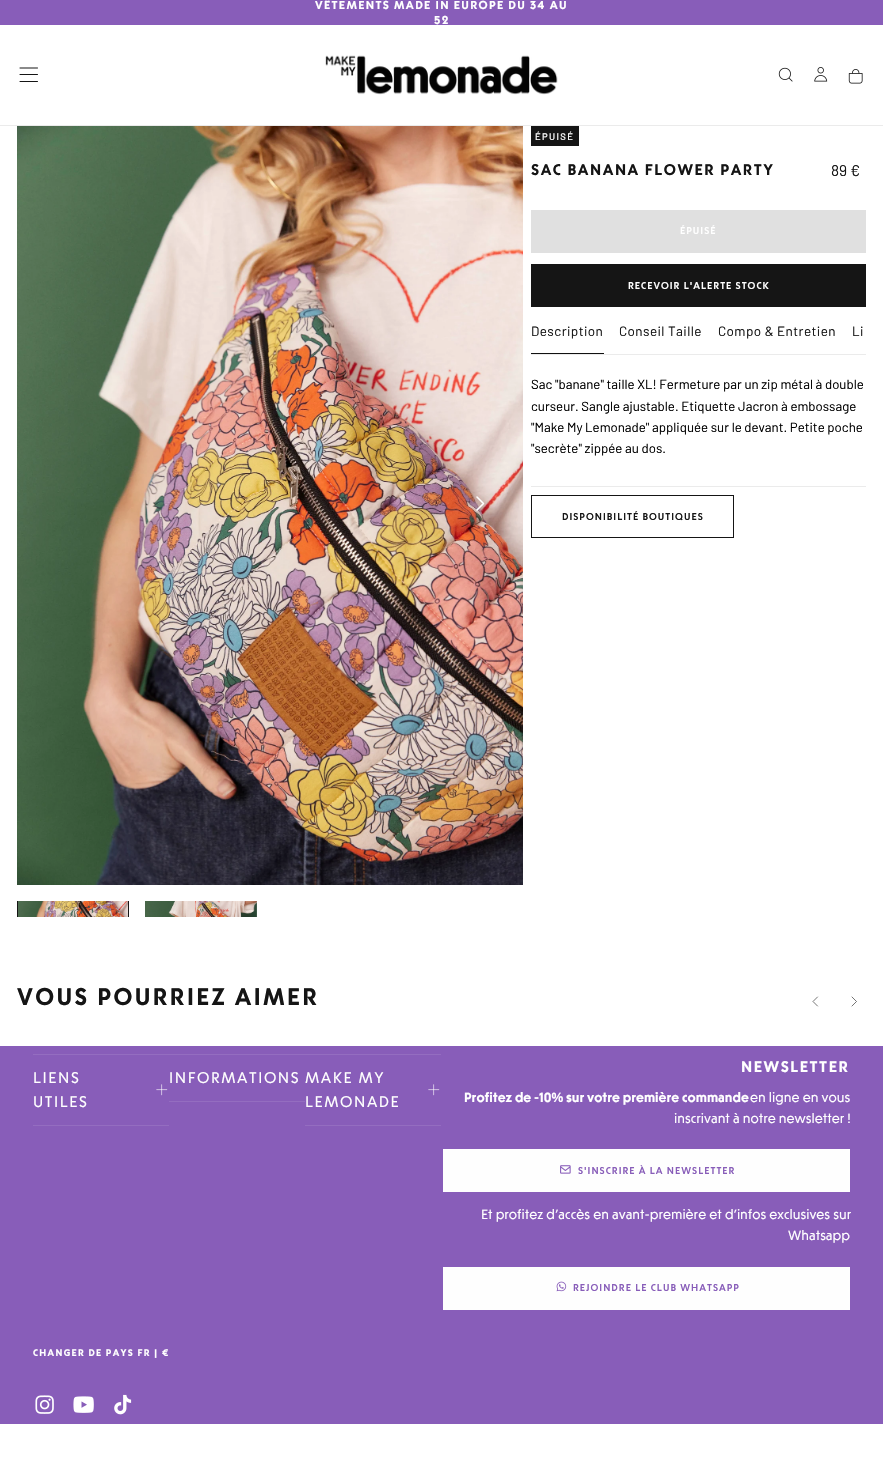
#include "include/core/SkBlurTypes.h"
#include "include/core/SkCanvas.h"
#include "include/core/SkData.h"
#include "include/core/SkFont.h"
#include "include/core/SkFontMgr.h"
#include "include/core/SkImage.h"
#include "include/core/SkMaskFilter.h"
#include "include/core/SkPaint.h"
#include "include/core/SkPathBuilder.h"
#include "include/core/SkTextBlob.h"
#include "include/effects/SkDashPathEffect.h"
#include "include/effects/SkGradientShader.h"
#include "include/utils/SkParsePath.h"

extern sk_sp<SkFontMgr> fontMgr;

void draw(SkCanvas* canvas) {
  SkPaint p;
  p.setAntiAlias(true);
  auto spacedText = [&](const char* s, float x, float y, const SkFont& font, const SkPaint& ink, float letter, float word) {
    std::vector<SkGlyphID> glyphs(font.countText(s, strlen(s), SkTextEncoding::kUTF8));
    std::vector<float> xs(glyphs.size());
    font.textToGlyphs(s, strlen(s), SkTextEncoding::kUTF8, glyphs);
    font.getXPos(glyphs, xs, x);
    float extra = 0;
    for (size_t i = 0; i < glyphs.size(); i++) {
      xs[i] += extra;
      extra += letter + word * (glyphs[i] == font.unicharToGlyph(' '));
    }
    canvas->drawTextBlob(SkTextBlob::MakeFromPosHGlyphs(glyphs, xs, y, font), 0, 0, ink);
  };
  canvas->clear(SK_ColorWHITE);
  p.setColor(SkColorSetRGB(136, 93, 185));
  canvas->drawRect(SkRect::MakeLTRB(0, 0, 883, 25), p);
  p.setColor(SkColorSetRGB(235, 235, 235));
  canvas->drawRect(SkRect::MakeLTRB(0, 125, 883, 126), p);
  p.setStyle(SkPaint::kStroke_Style);
  p.setStrokeWidth(1);
  p.setStrokeCap(SkPaint::kRound_Cap);
  p.setColor(SkColorSetRGB(21, 21, 21));
  canvas->drawPath(SkPathBuilder().moveTo(20, 74.5f).lineTo(37.5f, 74.5f).moveTo(20, 68).lineTo(37.5f, 68).moveTo(20, 81.5f).lineTo(37.5f, 81.5f).detach(), p);
  canvas->drawImageRect(SkImages::DeferredFromEncodedData(SkData::MakeFromFileName("images/1.png")), SkRect::MakeLTRB(325, 55, 558, 95), SkSamplingOptions());
  canvas->drawImageRect(SkImages::DeferredFromEncodedData(SkData::MakeFromFileName("images/2.png")), SkRect::MakeLTRB(778, 67, 793, 82), SkSamplingOptions());
  canvas->drawImageRect(SkImages::DeferredFromEncodedData(SkData::MakeFromFileName("images/3.png")), SkRect::MakeLTRB(814, 67, 828, 82), SkSamplingOptions());
  canvas->drawImageRect(SkImages::DeferredFromEncodedData(SkData::MakeFromFileName("images/4.png")), SkRect::MakeLTRB(848, 69, 863, 84), SkSamplingOptions());
  canvas->drawImageRect(SkImages::DeferredFromEncodedData(SkData::MakeFromFileName("images/5.png")), SkRect::MakeLTRB(17, 126, 523, 885), SkSamplingOptions());
  p.setStrokeWidth(1.6f);
  p.setStrokeJoin(SkPaint::kRound_Join);
  p.setColor(SK_ColorWHITE);
  canvas->drawPath(SkPathBuilder().moveTo(477, 510).lineTo(483.5f, 503.5f).lineTo(477, 497).detach(), p);
  canvas->save();
  canvas->clipRect(SkRect::MakeLTRB(17, 901, 523, 917));
  p.setStrokeWidth(1);
  p.setStrokeCap(SkPaint::kButt_Cap);
  p.setStrokeJoin(SkPaint::kMiter_Join);
  p.setColor(SkColorSetRGB(21, 21, 21));
  canvas->drawRect(SkRect::MakeLTRB(17.5f, 825.5f, 128.5f, 991.5f), p);
  canvas->restore();
  canvas->drawImageRect(SkImages::DeferredFromEncodedData(SkData::MakeFromFileName("images/6.png")), SkRect::MakeLTRB(18, 901, 128, 917), SkSamplingOptions());
  canvas->drawImageRect(SkImages::DeferredFromEncodedData(SkData::MakeFromFileName("images/7.png")), SkRect::MakeLTRB(145, 901, 257, 917), SkSamplingOptions());
  p.setStyle(SkPaint::kFill_Style);
  canvas->drawRect(SkRect::MakeLTRB(531, 126, 579, 146), p);
  p.setColor(SkColorSetRGB(224, 224, 224));
  canvas->drawRect(SkRect::MakeLTRB(531, 210, 866, 253), p);
  p.setColor(SkColorSetRGB(21, 21, 21));
  canvas->drawRect(SkRect::MakeLTRB(531, 264, 866, 307), p);
  p.setColor(SkColorSetRGB(235, 235, 235));
  canvas->drawRect(SkRect::MakeLTRB(531, 354, 866, 355), p);
  p.setColor(SkColorSetRGB(17, 17, 17));
  canvas->drawRect(SkRect::MakeLTRB(531, 353, 604, 354), p);
  p.setColor(SkColorSetRGB(235, 235, 235));
  canvas->drawRect(SkRect::MakeLTRB(531, 486, 866, 487), p);
  p.setStyle(SkPaint::kStroke_Style);
  p.setColor(SkColorSetRGB(21, 21, 21));
  canvas->drawRect(SkRect::MakeLTRB(531.5f, 495.5f, 733.5f, 537.5f), p);
  p.setStrokeWidth(0.6f);
  p.setStrokeCap(SkPaint::kRound_Cap);
  p.setStrokeJoin(SkPaint::kRound_Join);
  canvas->drawPath(SkPathBuilder().moveTo(817.5f, 997).lineTo(813, 1001.5f).lineTo(817.5f, 1006).moveTo(852, 997).lineTo(856.5f, 1001.5f).lineTo(852, 1006).detach(), p);
  p.setStyle(SkPaint::kFill_Style);
  p.setColor(SkColorSetRGB(136, 93, 185));
  canvas->drawRect(SkRect::MakeLTRB(0, 1046, 883, 1424), p);
  p.setColor(SkColorSetRGB(148, 109, 192));
  canvas->drawRect(SkRect::MakeLTRB(33, 1054, 441, 1055), p);
  canvas->drawRect(SkRect::MakeLTRB(33, 1125, 169, 1126), p);
  canvas->drawImageRect(SkImages::DeferredFromEncodedData(SkData::MakeFromFileName("images/8.png")), SkRect::MakeLTRB(156, 1084, 168, 1096), SkSamplingOptions());
  canvas->drawRect(SkRect::MakeLTRB(169, 1101, 305, 1102), p);
  canvas->drawRect(SkRect::MakeLTRB(305, 1125, 441, 1126), p);
  canvas->drawImageRect(SkImages::DeferredFromEncodedData(SkData::MakeFromFileName("images/8.png")), SkRect::MakeLTRB(428, 1084, 440, 1096), SkSamplingOptions());
  p.setColor(SkColorSetRGB(254, 254, 254));
  canvas->drawRect(SkRect::MakeLTRB(443, 1149, 850, 1192), p);
  canvas->drawImageRect(SkImages::DeferredFromEncodedData(SkData::MakeFromFileName("images/9.png")), SkRect::MakeLTRB(560, 1165, 571, 1174), SkSamplingOptions());
  canvas->drawRect(SkRect::MakeLTRB(443, 1267, 850, 1310), p);
  canvas->drawImageRect(SkImages::DeferredFromEncodedData(SkData::MakeFromFileName("images/10.png")), SkRect::MakeLTRB(556, 1281, 567, 1292), SkSamplingOptions());
  canvas->drawImageRect(SkImages::DeferredFromEncodedData(SkData::MakeFromFileName("images/11.png")), SkRect::MakeLTRB(35, 1395, 54, 1414), SkSamplingOptions());
  canvas->drawImageRect(SkImages::DeferredFromEncodedData(SkData::MakeFromFileName("images/12.png")), SkRect::MakeLTRB(73, 1396, 94, 1413), SkSamplingOptions());
  canvas->drawImageRect(SkImages::DeferredFromEncodedData(SkData::MakeFromFileName("images/13.png")), SkRect::MakeLTRB(114, 1394, 132, 1415), SkSamplingOptions());
  SkFont font1(fontMgr->matchFamilyStyle("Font", SkFontStyle::Bold()), 11.6f);
  font1.setSubpixel(true);
  p.setColor(SK_ColorWHITE);
  spacedText("VÊTEMENTS MADE IN EUROPE DU 34 AU", 315, 9, font1, p, 1.35f, 0);
  spacedText("52", 434, 24, font1, p, 1.35f, 0);
  SkFont font2(fontMgr->matchFamilyStyle("Barlow", SkFontStyle(500, SkFontStyle::kNormal_Width, SkFontStyle::kUpright_Slant)), 9.5f);
  font2.setSubpixel(true);
  spacedText("ÉPUISÉ", 535, 140, font2, p, 1.35f, 0);
  SkFont font3(fontMgr->matchFamilyStyle("Font", SkFontStyle::Bold()), 15.5f);
  font3.setSubpixel(true);
  p.setColor(SkColorSetRGB(21, 21, 21));
  spacedText("SAC BANANA FLOWER PARTY", 531, 175, font3, p, 1.55f, 0);
  SkFont font4(fontMgr->matchFamilyStyle("Barlow", SkFontStyle::Normal()), 15.5f);
  font4.setSubpixel(true);
  canvas->drawString("89 €", 831, 176, font4, p);
  SkFont font5(fontMgr->matchFamilyStyle("Font", SkFontStyle(500, SkFontStyle::kNormal_Width, SkFontStyle::kUpright_Slant)), 9.9f);
  font5.setSubpixel(true);
  p.setColor(SK_ColorWHITE);
  spacedText("ÉPUISÉ", 680, 234, font5, p, 1, 0);
  spacedText("RECEVOIR L'ALERTE STOCK", 628, 289, font5, p, 1, 0);
  SkFont font6(fontMgr->matchFamilyStyle("Barlow", SkFontStyle::Normal()), 13.5f);
  font6.setSubpixel(true);
  p.setColor(SkColorSetRGB(21, 21, 21));
  spacedText("Description", 531, 336, font6, p, 0.4f, 0);
  spacedText("Conseil Taille", 619, 336, font6, p, 0.4f, 0);
  spacedText("Compo & Entretien", 718, 336, font6, p, 0.4f, 0);
  spacedText("Li", 852, 336, font6, p, 0.4f, 0);
  SkFont font7(fontMgr->matchFamilyStyle("Barlow", SkFontStyle::Normal()), 13.2f);
  font7.setSubpixel(true);
  p.setColor(SK_ColorBLACK);
  canvas->drawString("Sac \"banane\" taille XL! Fermeture par un zip métal à double", 531, 389, font7, p);
  canvas->drawString("curseur. Sangle ajustable. Etiquette Jacron à embossage", 531, 411, font7, p);
  canvas->drawString("\"Make My Lemonade\" appliquée sur le devant. Petite poche", 531, 432, font7, p);
  canvas->drawString("\"secrète\" zippée au dos.", 531, 453, font7, p);
  p.setColor(SkColorSetRGB(21, 21, 21));
  spacedText("DISPONIBILITÉ BOUTIQUES", 562, 520, font5, p, 1, 0);
  SkFont font8(fontMgr->matchFamilyStyle("Font", SkFontStyle::Bold()), 24.1f);
  font8.setSubpixel(true);
  spacedText("VOUS POURRIEZ AIMER", 17, 1005, font8, p, 2.4f, 0);
  SkFont font9(fontMgr->matchFamilyStyle("Font", SkFontStyle::Normal()), 15.5f);
  font9.setSubpixel(true);
  p.setColor(SK_ColorWHITE);
  spacedText("LIENS", 33, 1083, font9, p, 1.55f, 0);
  spacedText("UTILES", 33, 1107, font9, p, 1.55f, 0);
  spacedText("INFORMATIONS", 169, 1083, font9, p, 1.55f, 0);
  spacedText("MAKE MY", 305, 1083, font9, p, 1.55f, 0);
  spacedText("LEMONADE", 305, 1107, font9, p, 1.55f, 0);
  spacedText("NEWSLETTER", 741, 1072, font3, p, 1.55f, 0);
  SkFont font10(fontMgr->matchFamilyStyle("Font", SkFontStyle::Bold()), 13.2f);
  font10.setSubpixel(true);
  canvas->drawString("Profitez de -10% sur votre première commande", 464, 1102, font10, p);
  SkFont font11(fontMgr->matchFamilyStyle("Font", SkFontStyle::Normal()), 13.2f);
  font11.setSubpixel(true);
  canvas->drawString("en ligne en vous", 750, 1102, font11, p);
  canvas->drawString("inscrivant à notre newsletter !", 674, 1123, font11, p);
  p.setColor(SkColorSetRGB(136, 93, 185));
  spacedText("S'INSCRIRE À LA NEWSLETTER", 578, 1174, font5, p, 1, 0);
  p.setColor(SK_ColorWHITE);
  canvas->drawString("Et profitez d’accès en avant-première et d’infos exclusives sur", 481, 1219, font11, p);
  canvas->drawString("Whatsapp", 788, 1240, font11, p);
  p.setColor(SkColorSetRGB(136, 93, 185));
  spacedText("REJOINDRE LE CLUB WHATSAPP", 573, 1291, font5, p, 1, 0);
  SkFont font12(fontMgr->matchFamilyStyle("Font", SkFontStyle::Bold()), 9.5f);
  font12.setSubpixel(true);
  p.setColor(SK_ColorWHITE);
  spacedText("CHANGER DE PAYS FR | €", 33, 1356, font12, p, 1.35f, 0);
}
